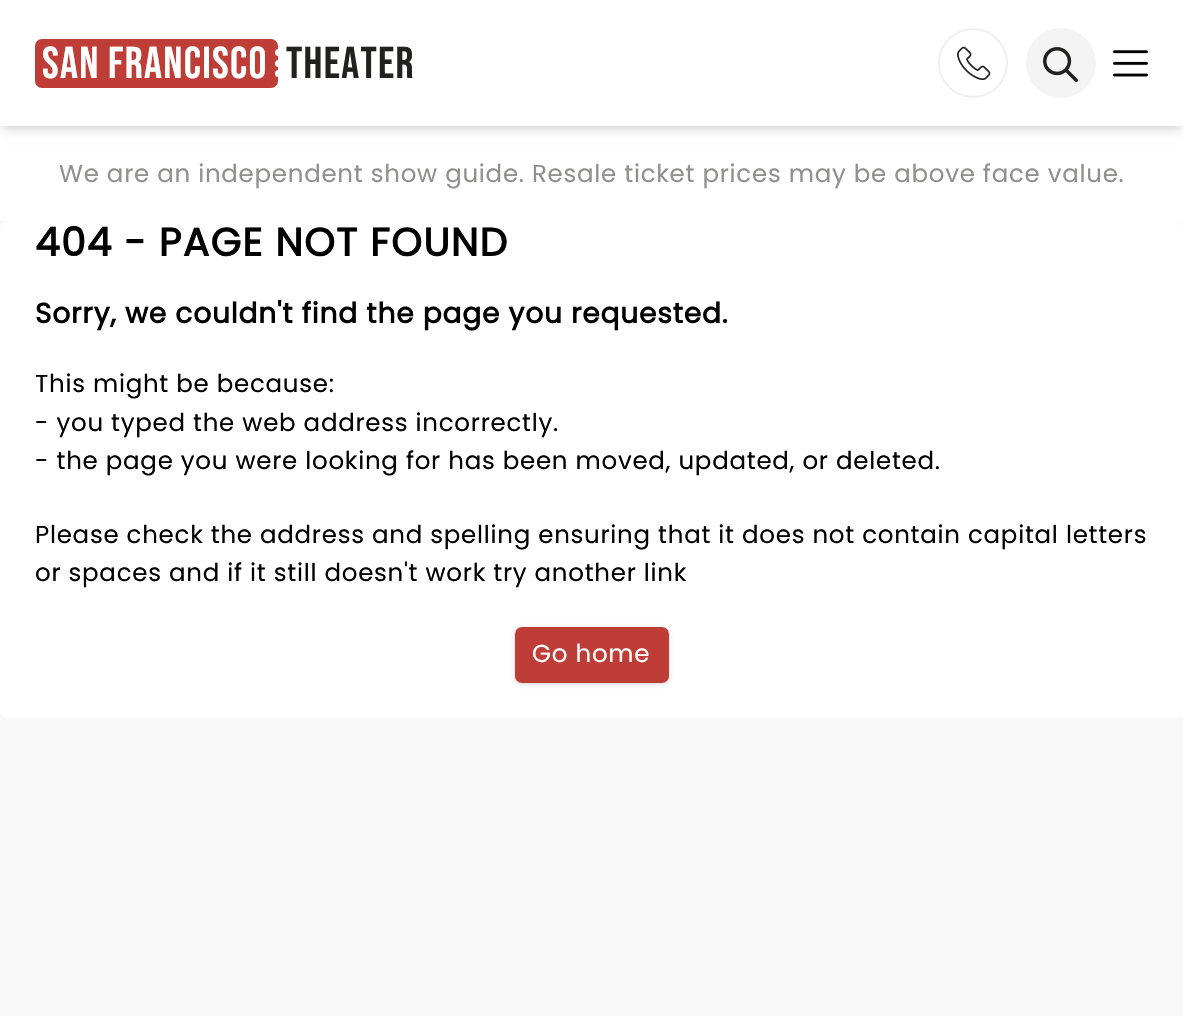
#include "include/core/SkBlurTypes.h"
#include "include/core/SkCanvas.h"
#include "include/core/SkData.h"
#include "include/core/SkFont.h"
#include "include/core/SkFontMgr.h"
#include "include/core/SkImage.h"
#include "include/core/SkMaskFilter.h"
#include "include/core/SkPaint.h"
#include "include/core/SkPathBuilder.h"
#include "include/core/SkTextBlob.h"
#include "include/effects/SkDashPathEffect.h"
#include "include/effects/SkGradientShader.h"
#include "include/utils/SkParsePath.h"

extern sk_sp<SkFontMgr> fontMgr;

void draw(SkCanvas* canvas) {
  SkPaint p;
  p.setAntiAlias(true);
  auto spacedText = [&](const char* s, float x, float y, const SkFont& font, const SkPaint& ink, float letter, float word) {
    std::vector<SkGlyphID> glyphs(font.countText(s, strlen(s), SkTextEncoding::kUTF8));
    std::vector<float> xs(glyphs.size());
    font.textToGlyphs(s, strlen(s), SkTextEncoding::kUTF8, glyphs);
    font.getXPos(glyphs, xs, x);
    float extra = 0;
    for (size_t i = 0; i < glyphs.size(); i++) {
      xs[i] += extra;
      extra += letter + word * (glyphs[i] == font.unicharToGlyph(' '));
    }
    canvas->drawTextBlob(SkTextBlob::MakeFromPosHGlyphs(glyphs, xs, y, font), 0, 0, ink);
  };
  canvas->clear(SkColorSetRGB(248, 248, 248));
  p.setColor(SK_ColorWHITE);
  canvas->drawRect(SkRect::MakeLTRB(0, 126, 1183, 221), p);
  p.setColor(SkColorSetARGB(26, 0, 0, 0));
  p.setMaskFilter(SkMaskFilter::MakeBlur(kNormal_SkBlurStyle, 3.5f));
  canvas->drawRect(SkRect::MakeLTRB(4, 7, 1180, 126), p);
  p.setMaskFilter(nullptr);
  p.setMaskFilter(SkMaskFilter::MakeBlur(kNormal_SkBlurStyle, 5));
  canvas->drawRect(SkRect::MakeLTRB(2, 9, 1181, 131), p);
  p.setMaskFilter(nullptr);
  p.setColor(SK_ColorWHITE);
  canvas->drawRect(SkRect::MakeLTRB(0, 0, 1183, 126), p);
  p.setColor(SkColorSetRGB(191, 61, 55));
  canvas->drawRoundRect(SkRect::MakeLTRB(35, 39, 278, 88), 7, 7, p);
  p.setColor(SK_ColorWHITE);
  canvas->drawCircle(278.5f, 52.5f, 3.5f, p);
  canvas->drawCircle(278.5f, 63.5f, 3.5f, p);
  canvas->drawCircle(278.5f, 73.5f, 3.5f, p);
  p.setStyle(SkPaint::kStroke_Style);
  p.setStrokeWidth(2);
  p.setColor(SkColorSetRGB(240, 240, 240));
  canvas->drawCircle(973, 63, 34, p);
  canvas->drawImageRect(SkImages::DeferredFromEncodedData(SkData::MakeFromFileName("images/1.png")), SkRect::MakeLTRB(957, 46, 991, 81), SkSamplingOptions());
  p.setStyle(SkPaint::kFill_Style);
  p.setColor(SkColorSetRGB(244, 244, 244));
  canvas->drawCircle(1061, 63, 35, p);
  canvas->drawImageRect(SkImages::DeferredFromEncodedData(SkData::MakeFromFileName("images/2.png")), SkRect::MakeLTRB(1043, 47, 1078, 82), SkSamplingOptions());
  canvas->drawImageRect(SkImages::DeferredFromEncodedData(SkData::MakeFromFileName("images/3.png")), SkRect::MakeLTRB(1113, 50, 1148, 77), SkSamplingOptions());
  p.setColor(SK_ColorWHITE);
  canvas->drawRoundRect(SkRect::MakeLTRB(0, 221, 1183, 718), 7, 7, p);
  p.setColor(SkColorSetARGB(26, 0, 0, 0));
  p.setMaskFilter(SkMaskFilter::MakeBlur(kNormal_SkBlurStyle, 2));
  canvas->drawRoundRect(SkRect::MakeLTRB(516, 630, 667, 683), 5, 5, p);
  p.setMaskFilter(nullptr);
  p.setMaskFilter(SkMaskFilter::MakeBlur(kNormal_SkBlurStyle, 2.5f));
  canvas->drawRoundRect(SkRect::MakeLTRB(515, 628, 669, 684), 7, 7, p);
  p.setMaskFilter(nullptr);
  p.setColor(SkColorSetRGB(191, 61, 55));
  canvas->drawRoundRect(SkRect::MakeLTRB(515, 627, 669, 683), 7, 7, p);
  SkFont font1(fontMgr->matchFamilyStyle("Bebas Neue", SkFontStyle::Normal()), 44.75f);
  font1.setSubpixel(true);
  p.setColor(SK_ColorWHITE);
  spacedText("San Francisco", 42, 78, font1, p, 1.3f, 0);
  p.setColor(SkColorSetRGB(33, 33, 32));
  spacedText("Theater", 286, 78, font1, p, 1.3f, 0);
  SkFont font2(fontMgr->matchFamilyStyle("Poppins", SkFontStyle::Normal()), 24.5f);
  font2.setSubpixel(true);
  p.setColor(SkColorSetRGB(144, 144, 143));
  spacedText("We are an independent show guide. Resale ticket prices may be above face value.", 59, 182, font2, p, 0.73f, 0);
  SkFont font3(fontMgr->matchFamilyStyle("Poppins", SkFontStyle::Bold()), 39.25f);
  font3.setSubpixel(true);
  p.setColor(SK_ColorBLACK);
  spacedText("404 - PAGE NOT FOUND", 35, 256, font3, p, 1.2f, 0);
  SkFont font4(fontMgr->matchFamilyStyle("Poppins", SkFontStyle::Bold()), 28);
  font4.setSubpixel(true);
  spacedText("Sorry, we couldn't find the page you requested.", 35, 323, font4, p, 0.85f, 0);
  spacedText("This might be because:", 35, 392, font2, p, 0.73f, 0);
  spacedText("- you typed the web address incorrectly.", 35, 431, font2, p, 0.73f, 0);
  spacedText("- the page you were looking for has been moved, updated, or deleted.", 35, 469, font2, p, 0.73f, 0);
  spacedText("Please check the address and spelling ensuring that it does not contain capital letters", 35, 543, font2, p, 0.73f, 0);
  spacedText("or spaces and if it still doesn't work try another link", 35, 581, font2, p, 0.73f, 0);
  p.setColor(SK_ColorWHITE);
  spacedText("Go home", 532, 662, font2, p, 0.73f, 0);
}
